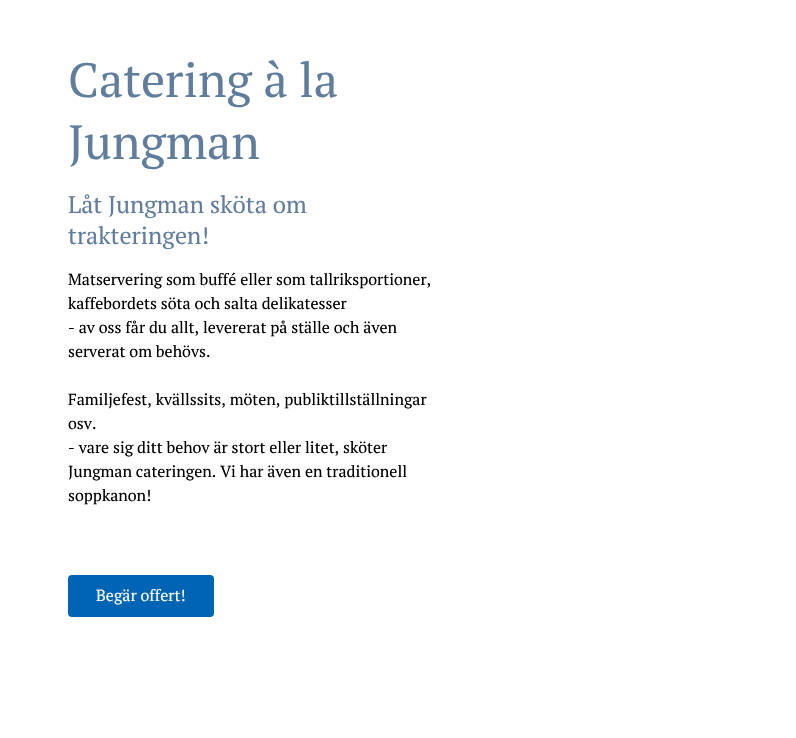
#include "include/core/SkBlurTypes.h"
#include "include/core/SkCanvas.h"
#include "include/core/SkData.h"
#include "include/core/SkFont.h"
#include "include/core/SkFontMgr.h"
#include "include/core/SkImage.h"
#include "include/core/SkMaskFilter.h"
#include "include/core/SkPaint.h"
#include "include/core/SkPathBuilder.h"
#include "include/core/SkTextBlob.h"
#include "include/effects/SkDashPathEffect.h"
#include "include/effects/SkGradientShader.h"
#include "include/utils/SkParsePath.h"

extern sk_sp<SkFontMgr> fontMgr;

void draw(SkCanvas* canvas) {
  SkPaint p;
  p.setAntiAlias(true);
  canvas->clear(SK_ColorWHITE);
  p.setColor(SkColorSetRGB(0, 100, 180));
  canvas->drawRoundRect(SkRect::MakeLTRB(68, 575, 214, 617), 4, 4, p);
  SkFont font1(fontMgr->matchFamilyStyle("PT Serif", SkFontStyle::Normal()), 48);
  font1.setSubpixel(true);
  p.setColor(SkColorSetRGB(96, 125, 157));
  canvas->drawString("Catering à la", 68, 97, font1, p);
  canvas->drawString("Jungman", 68, 159, font1, p);
  SkFont font2(fontMgr->matchFamilyStyle("PT Serif", SkFontStyle::Normal()), 24);
  font2.setSubpixel(true);
  canvas->drawString("Låt Jungman sköta om", 68, 213, font2, p);
  canvas->drawString("trakteringen!", 68, 244, font2, p);
  SkFont font3(fontMgr->matchFamilyStyle("PT Serif", SkFontStyle::Normal()), 16);
  font3.setSubpixel(true);
  p.setColor(SK_ColorBLACK);
  canvas->drawString("Matservering som buffé eller som tallriksportioner,", 68, 285, font3, p);
  canvas->drawString("kaffebordets söta och salta delikatesser", 68, 309, font3, p);
  canvas->drawString("- av oss får du allt, levererat på ställe och även", 68, 333, font3, p);
  canvas->drawString("serverat om behövs.", 68, 357, font3, p);
  canvas->drawString("Familjefest, kvällssits, möten, publiktillställningar", 68, 405, font3, p);
  canvas->drawString("osv.", 68, 429, font3, p);
  canvas->drawString("- vare sig ditt behov är stort eller litet, sköter", 68, 453, font3, p);
  canvas->drawString("Jungman cateringen. Vi har även en traditionell", 68, 477, font3, p);
  canvas->drawString("soppkanon!", 68, 501, font3, p);
  p.setColor(SK_ColorWHITE);
  canvas->drawString("Begär offert!", 96, 601, font3, p);
}
